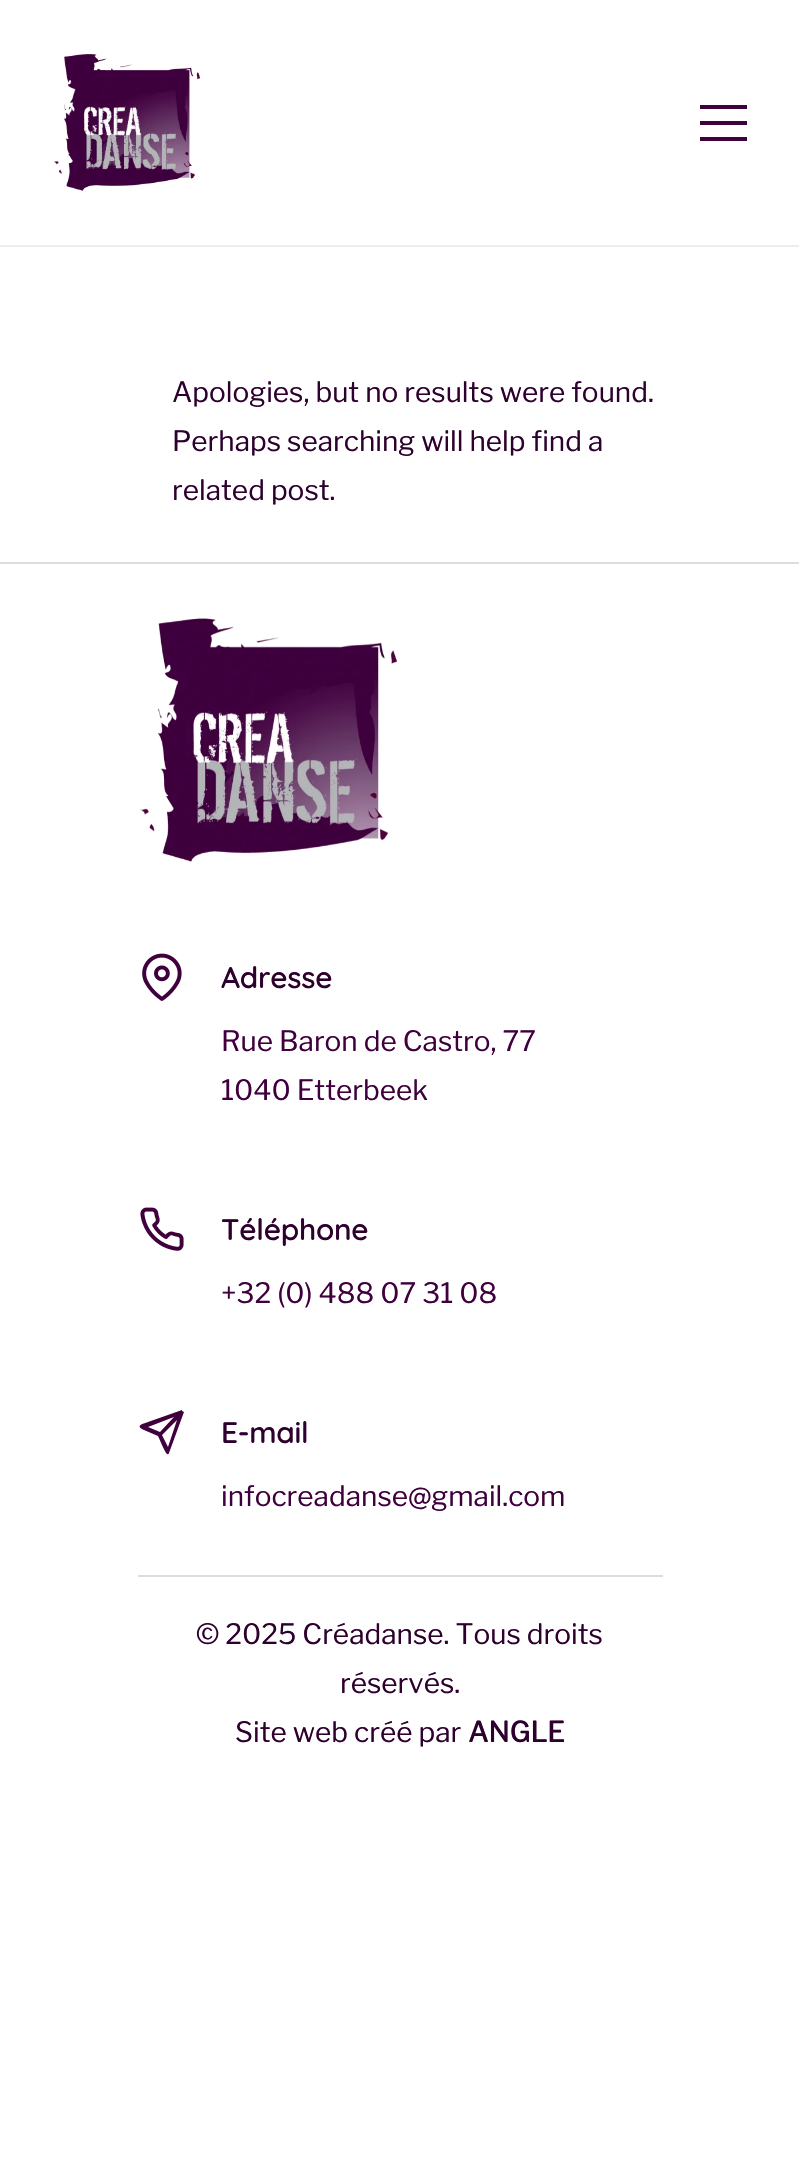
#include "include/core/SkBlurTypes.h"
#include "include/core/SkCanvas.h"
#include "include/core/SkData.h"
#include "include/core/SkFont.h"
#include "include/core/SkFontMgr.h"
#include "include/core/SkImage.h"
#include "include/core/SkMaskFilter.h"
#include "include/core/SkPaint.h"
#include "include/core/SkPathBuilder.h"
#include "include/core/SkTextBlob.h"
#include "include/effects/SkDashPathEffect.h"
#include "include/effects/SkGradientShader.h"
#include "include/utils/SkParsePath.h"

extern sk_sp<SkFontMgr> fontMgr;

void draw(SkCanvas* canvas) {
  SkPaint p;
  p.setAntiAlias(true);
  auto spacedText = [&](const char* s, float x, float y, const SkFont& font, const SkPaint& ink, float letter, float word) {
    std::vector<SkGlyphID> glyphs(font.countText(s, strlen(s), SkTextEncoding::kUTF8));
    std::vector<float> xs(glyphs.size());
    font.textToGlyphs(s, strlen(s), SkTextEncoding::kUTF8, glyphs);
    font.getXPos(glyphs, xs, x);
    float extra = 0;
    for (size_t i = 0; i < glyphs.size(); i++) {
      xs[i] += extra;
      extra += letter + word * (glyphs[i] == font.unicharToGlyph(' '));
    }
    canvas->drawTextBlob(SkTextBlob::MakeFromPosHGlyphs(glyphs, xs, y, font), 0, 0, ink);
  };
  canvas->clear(SK_ColorWHITE);
  p.setColor(SkColorSetRGB(237, 237, 237));
  canvas->drawRect(SkRect::MakeLTRB(0, 245, 799, 247), p);
  canvas->drawImageRect(SkImages::DeferredFromEncodedData(SkData::MakeFromFileName("images/1.png")), SkRect::MakeLTRB(53, 54, 201, 191), SkSamplingOptions());
  p.setColor(SkColorSetRGB(63, 0, 61));
  canvas->drawRect(SkRect::MakeLTRB(700, 105, 747, 109), p);
  canvas->drawRect(SkRect::MakeLTRB(700, 121, 747, 125), p);
  canvas->drawRect(SkRect::MakeLTRB(700, 137, 747, 141), p);
  p.setColor(SkColorSetRGB(221, 221, 221));
  canvas->drawRect(SkRect::MakeLTRB(0, 562, 799, 564), p);
  canvas->drawImageRect(SkImages::DeferredFromEncodedData(SkData::MakeFromFileName("images/2.png")), SkRect::MakeLTRB(140, 618, 397, 862), SkSamplingOptions());
  canvas->drawImageRect(SkImages::DeferredFromEncodedData(SkData::MakeFromFileName("images/3.png")), SkRect::MakeLTRB(142, 953, 182, 1001), SkSamplingOptions());
  canvas->drawImageRect(SkImages::DeferredFromEncodedData(SkData::MakeFromFileName("images/4.png")), SkRect::MakeLTRB(140, 1207, 184, 1251), SkSamplingOptions());
  p.setColor(SkColorSetRGB(63, 0, 61));
  canvas->drawPath(SkPathBuilder().moveTo(184, 1412).lineTo(182, 1411).lineTo(182, 1410).lineTo(148, 1422).cubicTo(142, 1424, 135, 1426, 144, 1430).lineTo(158, 1436).cubicTo(161, 1442, 167, 1459, 169, 1453).close().moveTo(174, 1417).lineTo(160, 1432).lineTo(148, 1427).close().moveTo(168, 1447).lineTo(162, 1435).lineTo(177, 1420).close().detach(), p);
  p.setColor(SkColorSetRGB(221, 221, 221));
  canvas->drawRect(SkRect::MakeLTRB(138, 1575, 663, 1577), p);
  SkFont font1(fontMgr->matchFamilyStyle("Libre Franklin", SkFontStyle(100, SkFontStyle::kNormal_Width, SkFontStyle::kUpright_Slant)), 28);
  font1.setSubpixel(true);
  p.setColor(SkColorSetRGB(45, 0, 45));
  canvas->drawString("Apologies, but no results were found.", 172, 402, font1, p);
  canvas->drawString("Perhaps searching will help find a", 172, 451, font1, p);
  canvas->drawString("related post.", 172, 500, font1, p);
  SkFont font2(fontMgr->matchFamilyStyle("Quicksand", SkFontStyle(600, SkFontStyle::kNormal_Width, SkFontStyle::kUpright_Slant)), 29.75f);
  font2.setSubpixel(true);
  spacedText("Adresse", 221, 988, font2, p, -0.25f, 0);
  p.setColor(SkColorSetRGB(63, 0, 61));
  canvas->drawString("Rue Baron de Castro, 77", 221, 1051, font1, p);
  canvas->drawString("1040 Etterbeek", 221, 1100, font1, p);
  p.setColor(SkColorSetRGB(45, 0, 45));
  spacedText("Téléphone", 221, 1240, font2, p, -0.25f, 0);
  p.setColor(SkColorSetRGB(63, 0, 61));
  canvas->drawString("+32 (0) 488 07 31 08", 221, 1303, font1, p);
  p.setColor(SkColorSetRGB(45, 0, 45));
  spacedText("E-mail", 221, 1443, font2, p, -0.25f, 0);
  p.setColor(SkColorSetRGB(63, 0, 61));
  canvas->drawString("infocreadanse@gmail.com", 221, 1506, font1, p);
  p.setColor(SkColorSetRGB(45, 0, 45));
  canvas->drawString("© 2025 Créadanse. Tous droits", 196, 1644, font1, p);
  canvas->drawString("réservés.", 340, 1693, font1, p);
  canvas->drawString("Site web créé par", 235, 1742, font1, p);
  SkFont font3(fontMgr->matchFamilyStyle("Libre Franklin", SkFontStyle::Bold()), 28);
  font3.setSubpixel(true);
  canvas->drawString("ANGLE", 468, 1742, font3, p);
}
